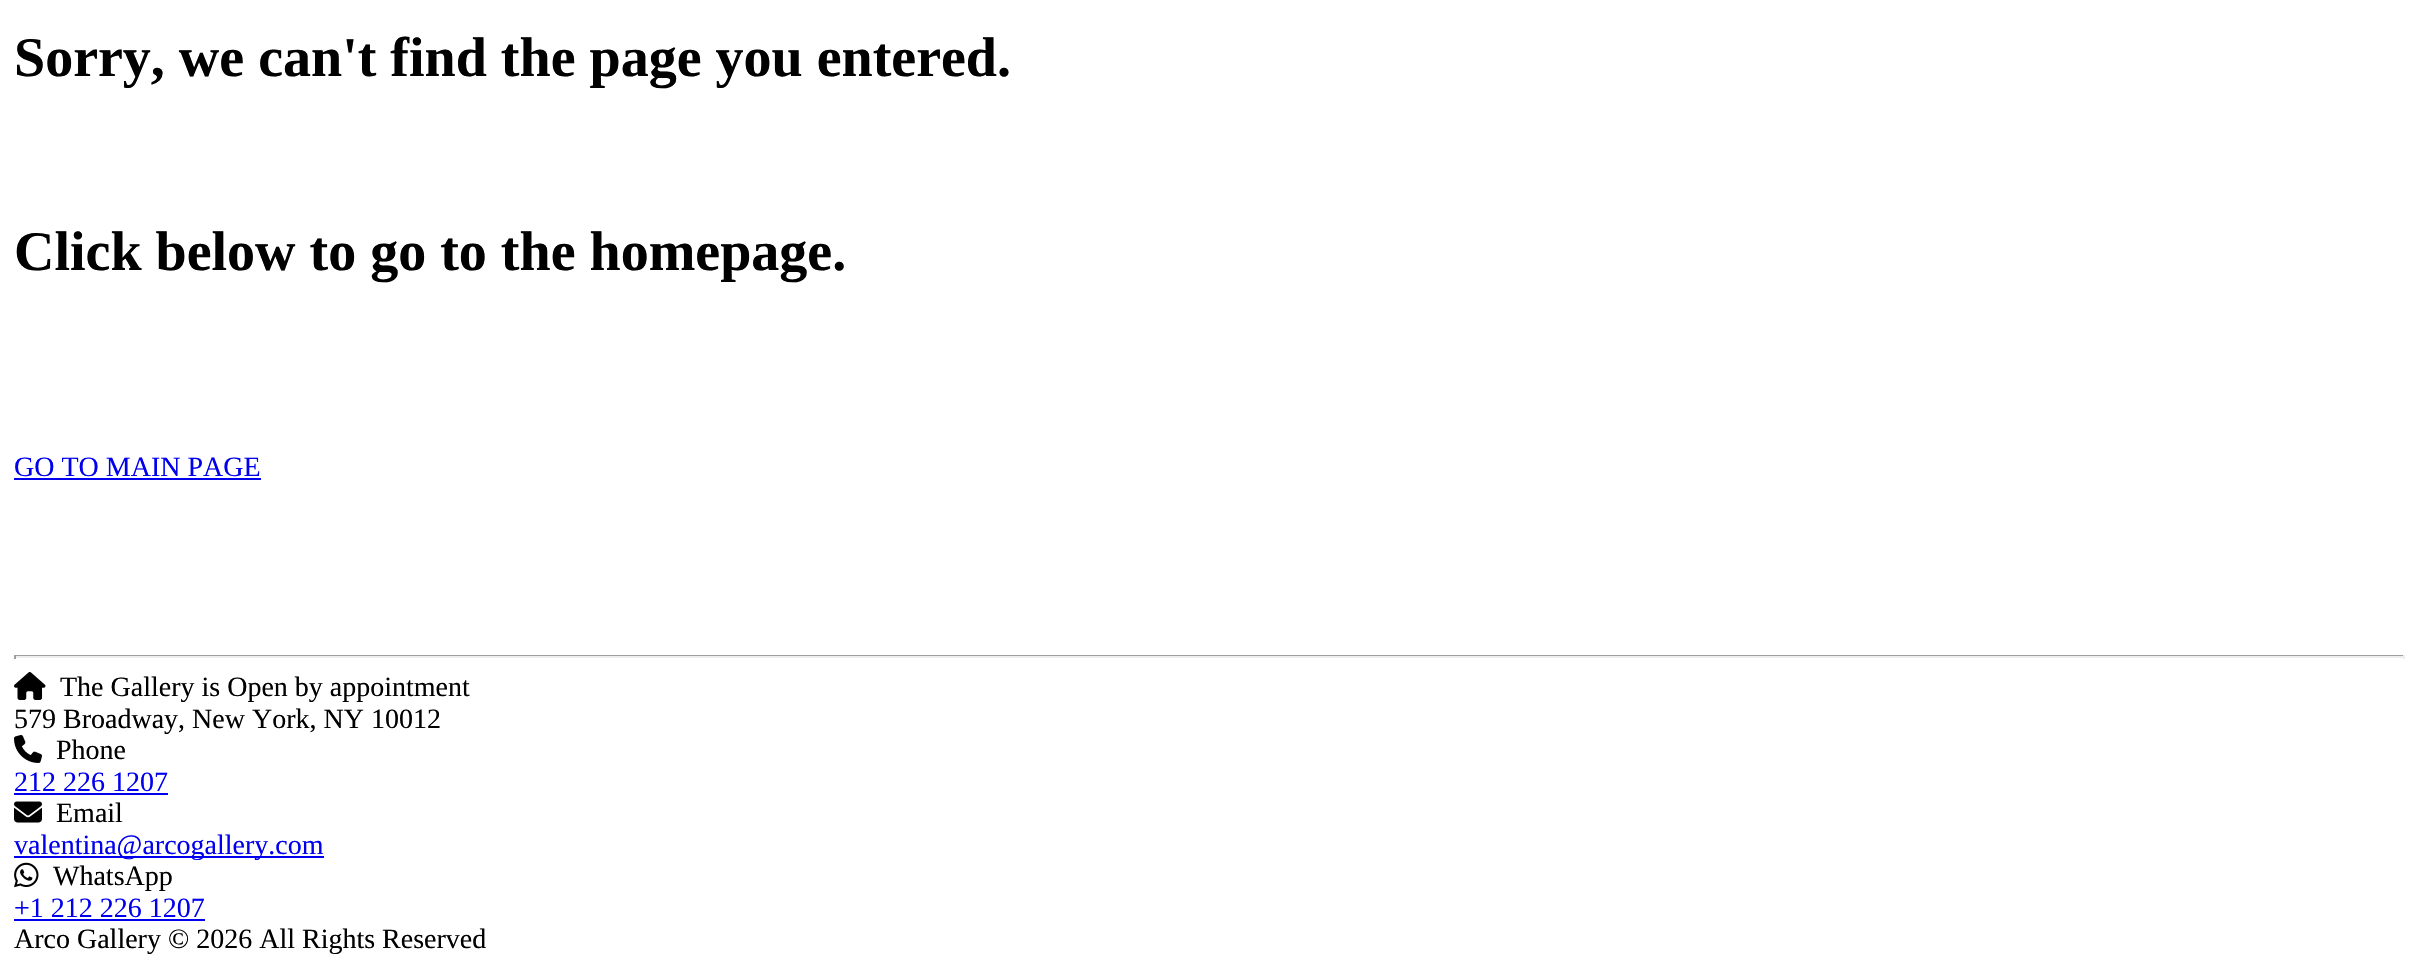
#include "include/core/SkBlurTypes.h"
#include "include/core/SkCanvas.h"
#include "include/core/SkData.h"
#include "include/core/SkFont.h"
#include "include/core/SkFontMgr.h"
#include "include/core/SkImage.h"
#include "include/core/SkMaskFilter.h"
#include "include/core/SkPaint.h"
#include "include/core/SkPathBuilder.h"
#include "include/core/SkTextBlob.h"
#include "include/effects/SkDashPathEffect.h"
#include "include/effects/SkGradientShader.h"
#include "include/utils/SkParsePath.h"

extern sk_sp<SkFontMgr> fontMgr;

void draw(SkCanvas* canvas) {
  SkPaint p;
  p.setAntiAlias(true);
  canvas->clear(SK_ColorWHITE);
  p.setColor(SkColorSetRGB(0, 0, 238));
  canvas->drawRect(SkRect::MakeLTRB(14, 478, 261, 480), p);
  p.setColor(SkColorSetRGB(159, 159, 159));
  canvas->drawRect(SkRect::MakeLTRB(14, 655, 2405, 656), p);
  p.setColor(SkColorSetRGB(238, 238, 238));
  canvas->drawRect(SkRect::MakeLTRB(2403, 655, 2405, 659), p);
  canvas->drawRect(SkRect::MakeLTRB(14, 656, 2405, 658), p);
  p.setColor(SkColorSetRGB(159, 159, 159));
  canvas->drawRect(SkRect::MakeLTRB(14, 655, 16, 659), p);
  canvas->drawImageRect(SkImages::DeferredFromEncodedData(SkData::MakeFromFileName("images/1.png")), SkRect::MakeLTRB(14, 672, 46, 700), SkSamplingOptions());
  canvas->drawImageRect(SkImages::DeferredFromEncodedData(SkData::MakeFromFileName("images/2.png")), SkRect::MakeLTRB(14, 735, 42, 763), SkSamplingOptions());
  p.setColor(SkColorSetRGB(0, 0, 238));
  canvas->drawRect(SkRect::MakeLTRB(14, 793, 168, 795), p);
  canvas->drawImageRect(SkImages::DeferredFromEncodedData(SkData::MakeFromFileName("images/3.png")), SkRect::MakeLTRB(14, 801, 42, 823), SkSamplingOptions());
  canvas->drawRect(SkRect::MakeLTRB(14, 856, 324, 858), p);
  canvas->drawImageRect(SkImages::DeferredFromEncodedData(SkData::MakeFromFileName("images/4.png")), SkRect::MakeLTRB(14, 862, 39, 888), SkSamplingOptions());
  canvas->drawRect(SkRect::MakeLTRB(14, 919, 205, 921), p);
  SkFont font1(fontMgr->matchFamilyStyle("Liberation Serif", SkFontStyle::Bold()), 56);
  font1.setSubpixel(true);
  p.setColor(SK_ColorBLACK);
  canvas->drawString("Sorry, we can't find the page you entered.", 14, 76, font1, p);
  canvas->drawString("Click below to go to the homepage.", 14, 270, font1, p);
  SkFont font2(fontMgr->matchFamilyStyle("Liberation Serif", SkFontStyle::Normal()), 28);
  font2.setSubpixel(true);
  p.setColor(SkColorSetRGB(0, 0, 238));
  canvas->drawString("GO TO MAIN PAGE", 14, 476, font2, p);
  p.setColor(SK_ColorBLACK);
  canvas->drawString("The Gallery is Open by appointment", 60, 696, font2, p);
  canvas->drawString("579 Broadway, New York, NY 10012", 14, 728, font2, p);
  canvas->drawString("Phone", 56, 759, font2, p);
  p.setColor(SkColorSetRGB(0, 0, 238));
  canvas->drawString("212 226 1207", 14, 791, font2, p);
  p.setColor(SK_ColorBLACK);
  canvas->drawString("Email", 56, 822, font2, p);
  p.setColor(SkColorSetRGB(0, 0, 238));
  canvas->drawString("valentina@arcogallery.com", 14, 854, font2, p);
  p.setColor(SK_ColorBLACK);
  canvas->drawString("WhatsApp", 53, 885, font2, p);
  p.setColor(SkColorSetRGB(0, 0, 238));
  canvas->drawString("+1 212 226 1207", 14, 917, font2, p);
  p.setColor(SK_ColorBLACK);
  canvas->drawString("Arco Gallery © 2026 All Rights Reserved", 14, 948, font2, p);
}
